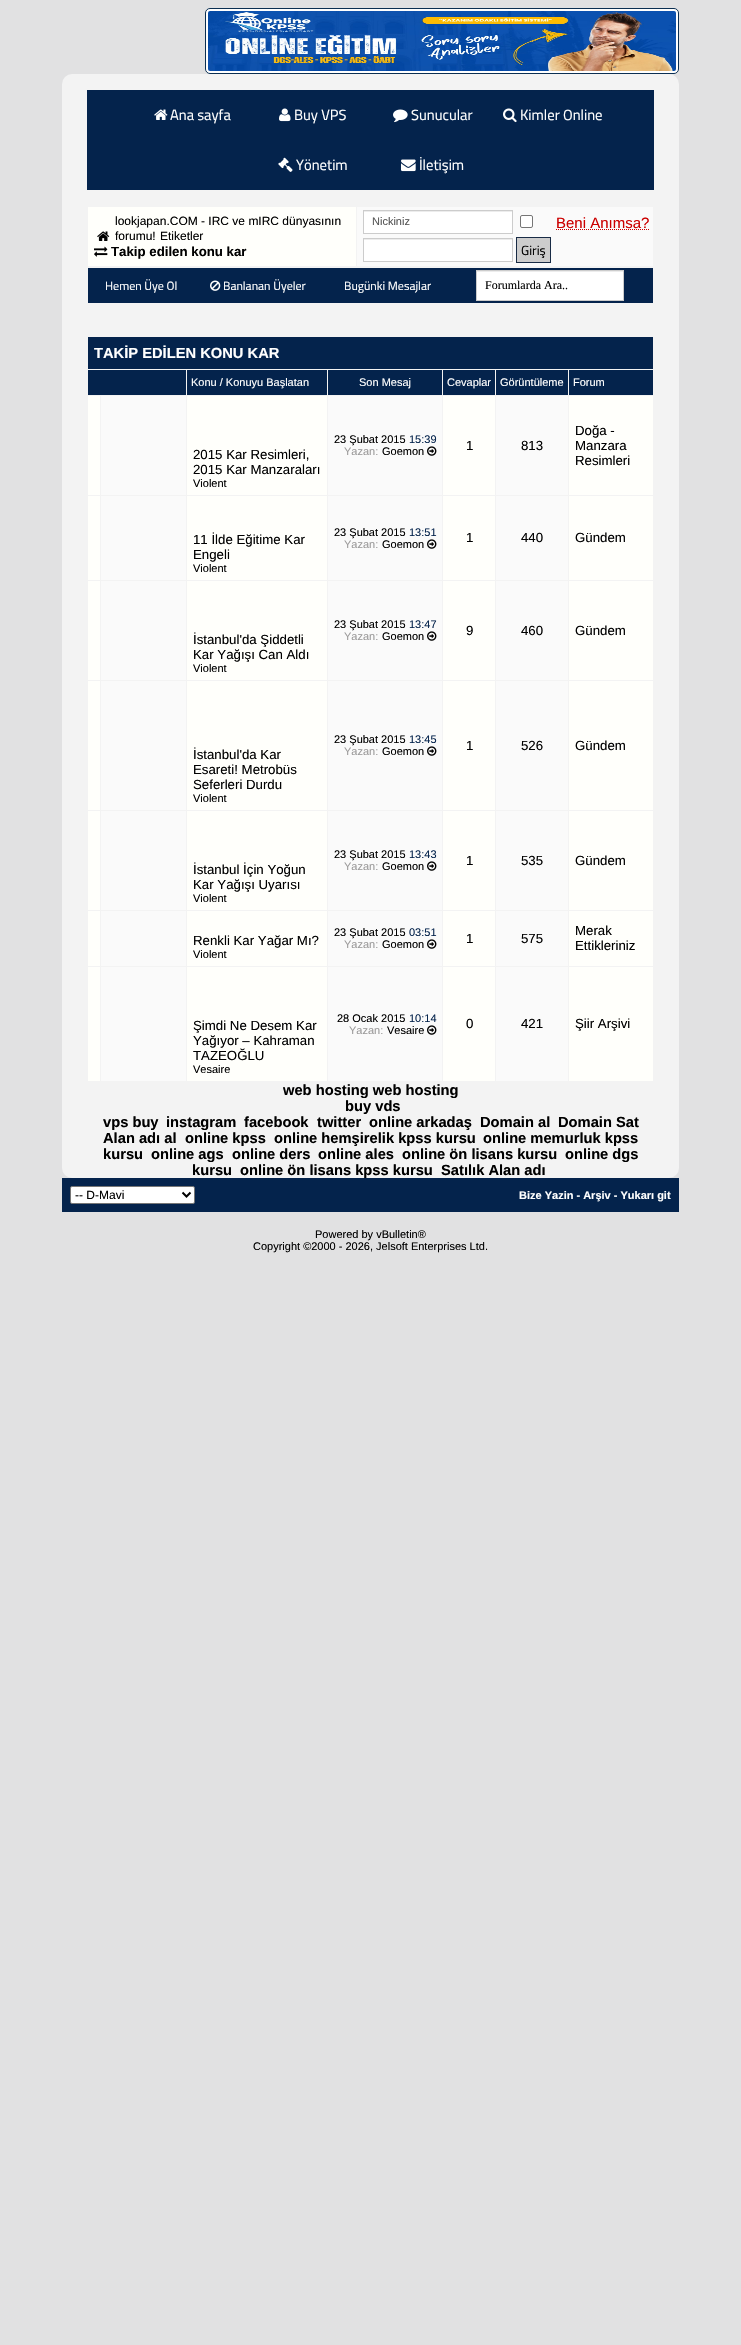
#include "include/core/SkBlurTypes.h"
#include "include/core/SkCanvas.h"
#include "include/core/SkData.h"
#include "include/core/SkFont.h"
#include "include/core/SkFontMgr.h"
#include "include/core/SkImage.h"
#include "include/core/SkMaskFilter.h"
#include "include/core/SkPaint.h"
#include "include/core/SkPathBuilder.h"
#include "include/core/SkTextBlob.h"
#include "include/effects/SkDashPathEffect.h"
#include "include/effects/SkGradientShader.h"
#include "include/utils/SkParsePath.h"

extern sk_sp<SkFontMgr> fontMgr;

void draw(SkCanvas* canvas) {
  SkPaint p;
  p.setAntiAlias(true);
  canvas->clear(SkColorSetRGB(225, 225, 226));
  p.setColor(SK_ColorWHITE);
  canvas->drawRoundRect(SkRect::MakeLTRB(205.5f, 8.5f, 678.5f, 73.5f), 4.5f, 4.5f, p);
  p.setStyle(SkPaint::kStroke_Style);
  p.setStrokeWidth(1);
  p.setColor(SkColorSetRGB(11, 47, 82));
  canvas->drawRoundRect(SkRect::MakeLTRB(205.5f, 8.5f, 678.5f, 73.5f), 4.5f, 4.5f, p);
  canvas->drawImageRect(SkImages::DeferredFromEncodedData(SkData::MakeFromFileName("images/1.png")), SkRect::MakeLTRB(208, 11, 676, 71), SkSamplingOptions());
  p.setStyle(SkPaint::kFill_Style);
  p.setColor(SkColorSetRGB(243, 243, 243));
  canvas->drawRoundRect(SkRect::MakeLTRB(62, 74, 679, 1178), 10, 10, p);
  p.setColor(SkColorSetRGB(4, 35, 76));
  canvas->drawRect(SkRect::MakeLTRB(87, 90, 654, 190), p);
  canvas->drawImageRect(SkImages::DeferredFromEncodedData(SkData::MakeFromFileName("images/2.png")), SkRect::MakeLTRB(154, 109, 168, 120), SkSamplingOptions());
  canvas->drawImageRect(SkImages::DeferredFromEncodedData(SkData::MakeFromFileName("images/3.png")), SkRect::MakeLTRB(279, 108, 291, 122), SkSamplingOptions());
  canvas->drawImageRect(SkImages::DeferredFromEncodedData(SkData::MakeFromFileName("images/4.png")), SkRect::MakeLTRB(393, 109, 408, 123), SkSamplingOptions());
  canvas->drawImageRect(SkImages::DeferredFromEncodedData(SkData::MakeFromFileName("images/5.png")), SkRect::MakeLTRB(503, 108, 517, 123), SkSamplingOptions());
  canvas->drawImageRect(SkImages::DeferredFromEncodedData(SkData::MakeFromFileName("images/6.png")), SkRect::MakeLTRB(278, 157, 293, 172), SkSamplingOptions());
  canvas->drawImageRect(SkImages::DeferredFromEncodedData(SkData::MakeFromFileName("images/7.png")), SkRect::MakeLTRB(401, 159, 416, 172), SkSamplingOptions());
  p.setColor(SkColorSetRGB(255, 255, 251));
  canvas->drawRect(SkRect::MakeLTRB(88, 207, 356, 266), p);
  canvas->drawImageRect(SkImages::DeferredFromEncodedData(SkData::MakeFromFileName("images/8.png")), SkRect::MakeLTRB(97, 231, 110, 241), SkSamplingOptions());
  canvas->drawImageRect(SkImages::DeferredFromEncodedData(SkData::MakeFromFileName("images/9.png")), SkRect::MakeLTRB(94, 246, 108, 257), SkSamplingOptions());
  p.setColor(SkColorSetRGB(250, 250, 250));
  canvas->drawRect(SkRect::MakeLTRB(357, 207, 653, 266), p);
  p.setColor(SK_ColorWHITE);
  canvas->drawRect(SkRect::MakeLTRB(364, 212, 512, 233), p);
  p.setColor(SkColorSetRGB(236, 236, 236));
  canvas->drawRect(SkRect::MakeLTRB(364, 211, 512, 212), p);
  p.setStyle(SkPaint::kStroke_Style);
  p.setColor(SkColorSetRGB(204, 204, 204));
  canvas->drawRect(SkRect::MakeLTRB(363.5f, 210.5f, 512.5f, 233.5f), p);
  p.setStyle(SkPaint::kFill_Style);
  p.setColor(SK_ColorWHITE);
  canvas->drawRoundRect(SkRect::MakeLTRB(520.5f, 215.5f, 532.5f, 227.5f), 1.5f, 1.5f, p);
  p.setStyle(SkPaint::kStroke_Style);
  p.setColor(SkColorSetRGB(118, 118, 118));
  canvas->drawRoundRect(SkRect::MakeLTRB(520.5f, 215.5f, 532.5f, 227.5f), 1.5f, 1.5f, p);
  p.setColor(SkColorSetRGB(204, 0, 0));
  p.setPathEffect(SkDashPathEffect::Make({{1, 1}}, 0));
  canvas->drawPath(SkPathBuilder().moveTo(556, 229.5f).lineTo(649.5f, 229.5f).detach(), p);
  p.setPathEffect(nullptr);
  p.setStyle(SkPaint::kFill_Style);
  p.setColor(SK_ColorWHITE);
  canvas->drawRect(SkRect::MakeLTRB(364, 240, 512, 261), p);
  p.setColor(SkColorSetRGB(236, 236, 236));
  canvas->drawRect(SkRect::MakeLTRB(364, 239, 512, 240), p);
  p.setStyle(SkPaint::kStroke_Style);
  p.setColor(SkColorSetRGB(204, 204, 204));
  canvas->drawRect(SkRect::MakeLTRB(363.5f, 238.5f, 512.5f, 261.5f), p);
  p.setStyle(SkPaint::kFill_Style);
  canvas->drawRect(SkRect::MakeLTRB(516.5f, 237.5f, 550.5f, 262.5f), p);
  p.setStyle(SkPaint::kStroke_Style);
  p.setColor(SkColorSetRGB(24, 43, 69));
  canvas->drawRect(SkRect::MakeLTRB(516.5f, 237.5f, 550.5f, 262.5f), p);
  p.setStyle(SkPaint::kFill_Style);
  p.setColor(SkColorSetRGB(4, 35, 76));
  canvas->drawRect(SkRect::MakeLTRB(88, 268, 653, 303), p);
  canvas->drawImageRect(SkImages::DeferredFromEncodedData(SkData::MakeFromFileName("images/10.png")), SkRect::MakeLTRB(210, 280, 221, 291), SkSamplingOptions());
  p.setColor(SK_ColorWHITE);
  canvas->drawRect(SkRect::MakeLTRB(477, 272, 623, 300), p);
  p.setColor(SkColorSetRGB(236, 236, 236));
  canvas->drawRect(SkRect::MakeLTRB(477, 271, 623, 272), p);
  p.setStyle(SkPaint::kStroke_Style);
  p.setColor(SkColorSetRGB(204, 204, 204));
  canvas->drawRect(SkRect::MakeLTRB(476.5f, 270.5f, 623.5f, 300.5f), p);
  p.setStyle(SkPaint::kFill_Style);
  p.setColor(SkColorSetRGB(4, 35, 76));
  canvas->drawRect(SkRect::MakeLTRB(88, 337, 653, 369), p);
  canvas->drawRect(SkRect::MakeLTRB(88, 370, 186, 395), p);
  canvas->drawRect(SkRect::MakeLTRB(187, 370, 327, 395), p);
  canvas->drawRect(SkRect::MakeLTRB(328, 370, 442, 395), p);
  canvas->drawRect(SkRect::MakeLTRB(443, 370, 495, 395), p);
  canvas->drawRect(SkRect::MakeLTRB(496, 370, 568, 395), p);
  canvas->drawRect(SkRect::MakeLTRB(569, 370, 653, 395), p);
  p.setColor(SkColorSetRGB(255, 255, 251));
  canvas->drawRect(SkRect::MakeLTRB(88, 396, 100, 495), p);
  p.setColor(SkColorSetRGB(250, 250, 250));
  canvas->drawRect(SkRect::MakeLTRB(101, 396, 186, 495), p);
  canvas->drawRect(SkRect::MakeLTRB(328, 396, 442, 495), p);
  canvas->drawImageRect(SkImages::DeferredFromEncodedData(SkData::MakeFromFileName("images/11.png")), SkRect::MakeLTRB(427, 446, 437, 456), SkSamplingOptions());
  p.setColor(SkColorSetRGB(255, 255, 251));
  canvas->drawRect(SkRect::MakeLTRB(443, 396, 495, 495), p);
  p.setColor(SkColorSetRGB(250, 250, 250));
  canvas->drawRect(SkRect::MakeLTRB(496, 396, 568, 495), p);
  p.setColor(SkColorSetRGB(255, 255, 251));
  canvas->drawRect(SkRect::MakeLTRB(569, 396, 653, 495), p);
  canvas->drawRect(SkRect::MakeLTRB(187, 396, 327, 495), p);
  canvas->drawRect(SkRect::MakeLTRB(88, 496, 100, 580), p);
  p.setColor(SkColorSetRGB(250, 250, 250));
  canvas->drawRect(SkRect::MakeLTRB(101, 496, 186, 580), p);
  p.setColor(SkColorSetRGB(255, 255, 251));
  canvas->drawRect(SkRect::MakeLTRB(187, 496, 327, 580), p);
  p.setColor(SkColorSetRGB(250, 250, 250));
  canvas->drawRect(SkRect::MakeLTRB(328, 496, 442, 580), p);
  canvas->drawImageRect(SkImages::DeferredFromEncodedData(SkData::MakeFromFileName("images/11.png")), SkRect::MakeLTRB(427, 539, 437, 549), SkSamplingOptions());
  p.setColor(SkColorSetRGB(255, 255, 251));
  canvas->drawRect(SkRect::MakeLTRB(443, 496, 495, 580), p);
  p.setColor(SkColorSetRGB(250, 250, 250));
  canvas->drawRect(SkRect::MakeLTRB(496, 496, 568, 580), p);
  p.setColor(SkColorSetRGB(255, 255, 251));
  canvas->drawRect(SkRect::MakeLTRB(569, 496, 653, 580), p);
  canvas->drawRect(SkRect::MakeLTRB(88, 581, 100, 680), p);
  p.setColor(SkColorSetRGB(250, 250, 250));
  canvas->drawRect(SkRect::MakeLTRB(101, 581, 186, 680), p);
  canvas->drawRect(SkRect::MakeLTRB(328, 581, 442, 680), p);
  canvas->drawImageRect(SkImages::DeferredFromEncodedData(SkData::MakeFromFileName("images/11.png")), SkRect::MakeLTRB(427, 631, 437, 641), SkSamplingOptions());
  p.setColor(SkColorSetRGB(255, 255, 251));
  canvas->drawRect(SkRect::MakeLTRB(443, 581, 495, 680), p);
  p.setColor(SkColorSetRGB(250, 250, 250));
  canvas->drawRect(SkRect::MakeLTRB(496, 581, 568, 680), p);
  p.setColor(SkColorSetRGB(255, 255, 251));
  canvas->drawRect(SkRect::MakeLTRB(569, 581, 653, 680), p);
  canvas->drawRect(SkRect::MakeLTRB(187, 581, 327, 680), p);
  canvas->drawRect(SkRect::MakeLTRB(88, 681, 100, 810), p);
  p.setColor(SkColorSetRGB(250, 250, 250));
  canvas->drawRect(SkRect::MakeLTRB(101, 681, 186, 810), p);
  canvas->drawRect(SkRect::MakeLTRB(328, 681, 442, 810), p);
  canvas->drawImageRect(SkImages::DeferredFromEncodedData(SkData::MakeFromFileName("images/11.png")), SkRect::MakeLTRB(427, 746, 437, 756), SkSamplingOptions());
  p.setColor(SkColorSetRGB(255, 255, 251));
  canvas->drawRect(SkRect::MakeLTRB(443, 681, 495, 810), p);
  p.setColor(SkColorSetRGB(250, 250, 250));
  canvas->drawRect(SkRect::MakeLTRB(496, 681, 568, 810), p);
  p.setColor(SkColorSetRGB(255, 255, 251));
  canvas->drawRect(SkRect::MakeLTRB(569, 681, 653, 810), p);
  canvas->drawRect(SkRect::MakeLTRB(187, 681, 327, 810), p);
  canvas->drawRect(SkRect::MakeLTRB(88, 811, 100, 910), p);
  p.setColor(SkColorSetRGB(250, 250, 250));
  canvas->drawRect(SkRect::MakeLTRB(101, 811, 186, 910), p);
  canvas->drawRect(SkRect::MakeLTRB(328, 811, 442, 910), p);
  canvas->drawImageRect(SkImages::DeferredFromEncodedData(SkData::MakeFromFileName("images/11.png")), SkRect::MakeLTRB(427, 861, 437, 871), SkSamplingOptions());
  p.setColor(SkColorSetRGB(255, 255, 251));
  canvas->drawRect(SkRect::MakeLTRB(443, 811, 495, 910), p);
  p.setColor(SkColorSetRGB(250, 250, 250));
  canvas->drawRect(SkRect::MakeLTRB(496, 811, 568, 910), p);
  p.setColor(SkColorSetRGB(255, 255, 251));
  canvas->drawRect(SkRect::MakeLTRB(569, 811, 653, 910), p);
  canvas->drawRect(SkRect::MakeLTRB(187, 811, 327, 910), p);
  canvas->drawRect(SkRect::MakeLTRB(88, 911, 100, 966), p);
  p.setColor(SkColorSetRGB(250, 250, 250));
  canvas->drawRect(SkRect::MakeLTRB(101, 911, 186, 966), p);
  p.setColor(SkColorSetRGB(255, 255, 251));
  canvas->drawRect(SkRect::MakeLTRB(187, 911, 327, 966), p);
  p.setColor(SkColorSetRGB(250, 250, 250));
  canvas->drawRect(SkRect::MakeLTRB(328, 911, 442, 966), p);
  canvas->drawImageRect(SkImages::DeferredFromEncodedData(SkData::MakeFromFileName("images/11.png")), SkRect::MakeLTRB(427, 939, 437, 949), SkSamplingOptions());
  p.setColor(SkColorSetRGB(255, 255, 251));
  canvas->drawRect(SkRect::MakeLTRB(443, 911, 495, 966), p);
  p.setColor(SkColorSetRGB(250, 250, 250));
  canvas->drawRect(SkRect::MakeLTRB(496, 911, 568, 966), p);
  p.setColor(SkColorSetRGB(255, 255, 251));
  canvas->drawRect(SkRect::MakeLTRB(569, 911, 653, 966), p);
  canvas->drawRect(SkRect::MakeLTRB(88, 967, 100, 1081), p);
  p.setColor(SkColorSetRGB(250, 250, 250));
  canvas->drawRect(SkRect::MakeLTRB(101, 967, 186, 1081), p);
  p.setColor(SkColorSetRGB(255, 255, 251));
  canvas->drawRect(SkRect::MakeLTRB(187, 967, 327, 1081), p);
  p.setColor(SkColorSetRGB(250, 250, 250));
  canvas->drawRect(SkRect::MakeLTRB(328, 967, 442, 1081), p);
  canvas->drawImageRect(SkImages::DeferredFromEncodedData(SkData::MakeFromFileName("images/11.png")), SkRect::MakeLTRB(427, 1025, 437, 1035), SkSamplingOptions());
  p.setColor(SkColorSetRGB(255, 255, 251));
  canvas->drawRect(SkRect::MakeLTRB(443, 967, 495, 1081), p);
  p.setColor(SkColorSetRGB(250, 250, 250));
  canvas->drawRect(SkRect::MakeLTRB(496, 967, 568, 1081), p);
  p.setColor(SkColorSetRGB(255, 255, 251));
  canvas->drawRect(SkRect::MakeLTRB(569, 967, 653, 1081), p);
  p.setColor(SkColorSetRGB(4, 35, 76));
  canvas->drawRect(SkRect::MakeLTRB(62, 1178, 679, 1212), p);
  p.setColor(SK_ColorWHITE);
  canvas->drawRoundRect(SkRect::MakeLTRB(70.5f, 1186.5f, 194.5f, 1203.5f), 1.5f, 1.5f, p);
  p.setStyle(SkPaint::kStroke_Style);
  p.setColor(SkColorSetRGB(118, 118, 118));
  canvas->drawRoundRect(SkRect::MakeLTRB(70.5f, 1186.5f, 194.5f, 1203.5f), 1.5f, 1.5f, p);
  p.setStrokeWidth(2);
  p.setColor(SK_ColorBLACK);
  canvas->drawPath(SkPathBuilder().moveTo(182.5f, 1192.5f).lineTo(186.5f, 1196.5f).lineTo(190.5f, 1192.5f).detach(), p);
  SkFont font1(fontMgr->matchFamilyStyle("Titillium Web", SkFontStyle::Normal()), 14.7f);
  font1.setSubpixel(true);
  p.setStyle(SkPaint::kFill_Style);
  p.setColor(SK_ColorWHITE);
  canvas->drawString("Ana sayfa", 170, 120, font1, p);
  canvas->drawString("Buy VPS", 294, 120, font1, p);
  canvas->drawString("Sunucular", 411, 120, font1, p);
  canvas->drawString("Kimler Online", 520, 120, font1, p);
  canvas->drawString("Yönetim", 296, 170, font1, p);
  canvas->drawString("İletişim", 419, 170, font1, p);
  SkFont font2(fontMgr->matchFamilyStyle("Liberation Sans", SkFontStyle::Normal()), 12);
  font2.setSubpixel(true);
  p.setColor(SK_ColorBLACK);
  canvas->drawString("lookjapan.COM - IRC ve mIRC dünyasının", 115, 225, font2, p);
  canvas->drawString("forumu!", 115, 240, font2, p);
  canvas->drawString("Etiketler", 160, 240, font2, p);
  SkFont font3(fontMgr->matchFamilyStyle("Liberation Sans", SkFontStyle::Bold()), 13.25f);
  font3.setSubpixel(true);
  canvas->drawString("Takip edilen konu kar", 111, 256, font3, p);
  SkFont font4(fontMgr->matchFamilyStyle("Liberation Sans", SkFontStyle::Normal()), 11);
  font4.setSubpixel(true);
  p.setColor(SkColorSetRGB(85, 85, 85));
  canvas->drawString("Nickiniz", 372, 225, font4, p);
  SkFont font5(fontMgr->matchFamilyStyle("Liberation Sans", SkFontStyle::Normal()), 15);
  font5.setSubpixel(true);
  p.setColor(SkColorSetRGB(204, 0, 0));
  canvas->drawString("Beni Anımsa?", 556, 228, font5, p);
  SkFont font6(fontMgr->matchFamilyStyle("Titillium Web", SkFontStyle::Normal()), 13.25f);
  font6.setSubpixel(true);
  p.setColor(SK_ColorBLACK);
  canvas->drawString("Giriş", 521, 255, font6, p);
  SkFont font7(fontMgr->matchFamilyStyle("Titillium Web", SkFontStyle::Normal()), 12);
  font7.setSubpixel(true);
  p.setColor(SK_ColorWHITE);
  canvas->drawString("Hemen Üye Ol", 105, 290, font7, p);
  canvas->drawString("Banlanan Üyeler", 223, 290, font7, p);
  canvas->drawString("Bugünki Mesajlar", 344, 290, font7, p);
  SkFont font8(fontMgr->matchFamilyStyle("Liberation Serif", SkFontStyle::Normal()), 12);
  font8.setSubpixel(true);
  p.setColor(SK_ColorBLACK);
  canvas->drawString("Forumlarda Ara..", 485, 289, font8, p);
  SkFont font9(fontMgr->matchFamilyStyle("Liberation Sans", SkFontStyle::Bold()), 14.7f);
  font9.setSubpixel(true);
  p.setColor(SK_ColorWHITE);
  canvas->drawString("TAKİP EDİLEN KONU KAR", 94, 358, font9, p);
  canvas->drawString("Konu / Konuyu Başlatan", 191, 386, font4, p);
  canvas->drawString("Son Mesaj", 359, 386, font4, p);
  canvas->drawString("Cevaplar", 447, 386, font4, p);
  canvas->drawString("Görüntüleme", 500, 386, font4, p);
  canvas->drawString("Forum", 573, 386, font4, p);
  p.setColor(SK_ColorBLACK);
  canvas->drawString("23 Şubat 2015", 334, 443, font4, p);
  p.setColor(SkColorSetRGB(4, 35, 76));
  canvas->drawString("15:39", 409, 443, font4, p);
  p.setColor(SkColorSetRGB(156, 155, 155));
  canvas->drawString("Yazan:", 344, 455, font4, p);
  p.setColor(SK_ColorBLACK);
  canvas->drawString("Goemon", 382, 455, font4, p);
  SkFont font10(fontMgr->matchFamilyStyle("Liberation Sans", SkFontStyle::Normal()), 13.25f);
  font10.setSubpixel(true);
  canvas->drawString("1", 466, 450, font10, p);
  canvas->drawString("813", 521, 450, font10, p);
  canvas->drawString("Doğa -", 575, 435, font10, p);
  canvas->drawString("Manzara", 575, 450, font10, p);
  canvas->drawString("Resimleri", 575, 465, font10, p);
  canvas->drawString("2015 Kar Resimleri,", 193, 459, font10, p);
  canvas->drawString("2015 Kar Manzaraları", 193, 474, font10, p);
  canvas->drawString("Violent", 193, 487, font4, p);
  canvas->drawString("11 İlde Eğitime Kar", 193, 544, font10, p);
  canvas->drawString("Engeli", 193, 559, font10, p);
  canvas->drawString("Violent", 193, 572, font4, p);
  canvas->drawString("23 Şubat 2015", 334, 536, font4, p);
  p.setColor(SkColorSetRGB(4, 35, 76));
  canvas->drawString("13:51", 409, 536, font4, p);
  p.setColor(SkColorSetRGB(156, 155, 155));
  canvas->drawString("Yazan:", 344, 548, font4, p);
  p.setColor(SK_ColorBLACK);
  canvas->drawString("Goemon", 382, 548, font4, p);
  canvas->drawString("1", 466, 542, font10, p);
  canvas->drawString("440", 521, 542, font10, p);
  canvas->drawString("Gündem", 575, 542, font10, p);
  canvas->drawString("23 Şubat 2015", 334, 628, font4, p);
  p.setColor(SkColorSetRGB(4, 35, 76));
  canvas->drawString("13:47", 409, 628, font4, p);
  p.setColor(SkColorSetRGB(156, 155, 155));
  canvas->drawString("Yazan:", 344, 640, font4, p);
  p.setColor(SK_ColorBLACK);
  canvas->drawString("Goemon", 382, 640, font4, p);
  canvas->drawString("9", 466, 635, font10, p);
  canvas->drawString("460", 521, 635, font10, p);
  canvas->drawString("Gündem", 575, 635, font10, p);
  canvas->drawString("İstanbul'da Şiddetli", 193, 644, font10, p);
  canvas->drawString("Kar Yağışı Can Aldı", 193, 659, font10, p);
  canvas->drawString("Violent", 193, 672, font4, p);
  canvas->drawString("23 Şubat 2015", 334, 743, font4, p);
  p.setColor(SkColorSetRGB(4, 35, 76));
  canvas->drawString("13:45", 409, 743, font4, p);
  p.setColor(SkColorSetRGB(156, 155, 155));
  canvas->drawString("Yazan:", 344, 755, font4, p);
  p.setColor(SK_ColorBLACK);
  canvas->drawString("Goemon", 382, 755, font4, p);
  canvas->drawString("1", 466, 750, font10, p);
  canvas->drawString("526", 521, 750, font10, p);
  canvas->drawString("Gündem", 575, 750, font10, p);
  canvas->drawString("İstanbul'da Kar", 193, 759, font10, p);
  canvas->drawString("Esareti! Metrobüs", 193, 774, font10, p);
  canvas->drawString("Seferleri Durdu", 193, 789, font10, p);
  canvas->drawString("Violent", 193, 802, font4, p);
  canvas->drawString("23 Şubat 2015", 334, 858, font4, p);
  p.setColor(SkColorSetRGB(4, 35, 76));
  canvas->drawString("13:43", 409, 858, font4, p);
  p.setColor(SkColorSetRGB(156, 155, 155));
  canvas->drawString("Yazan:", 344, 870, font4, p);
  p.setColor(SK_ColorBLACK);
  canvas->drawString("Goemon", 382, 870, font4, p);
  canvas->drawString("1", 466, 865, font10, p);
  canvas->drawString("535", 521, 865, font10, p);
  canvas->drawString("Gündem", 575, 865, font10, p);
  canvas->drawString("İstanbul İçin Yoğun", 193, 874, font10, p);
  canvas->drawString("Kar Yağışı Uyarısı", 193, 889, font10, p);
  canvas->drawString("Violent", 193, 902, font4, p);
  canvas->drawString("Renkli Kar Yağar Mı?", 193, 945, font10, p);
  canvas->drawString("Violent", 193, 958, font4, p);
  canvas->drawString("23 Şubat 2015", 334, 936, font4, p);
  p.setColor(SkColorSetRGB(4, 35, 76));
  canvas->drawString("03:51", 409, 936, font4, p);
  p.setColor(SkColorSetRGB(156, 155, 155));
  canvas->drawString("Yazan:", 344, 948, font4, p);
  p.setColor(SK_ColorBLACK);
  canvas->drawString("Goemon", 382, 948, font4, p);
  canvas->drawString("1", 466, 943, font10, p);
  canvas->drawString("575", 521, 943, font10, p);
  canvas->drawString("Merak", 575, 935, font10, p);
  canvas->drawString("Ettikleriniz", 575, 950, font10, p);
  canvas->drawString("Şimdi Ne Desem Kar", 193, 1030, font10, p);
  canvas->drawString("Yağıyor – Kahraman", 193, 1045, font10, p);
  canvas->drawString("TAZEOĞLU", 193, 1060, font10, p);
  canvas->drawString("Vesaire", 193, 1073, font4, p);
  canvas->drawString("28 Ocak 2015", 337, 1022, font4, p);
  p.setColor(SkColorSetRGB(4, 35, 76));
  canvas->drawString("10:14", 409, 1022, font4, p);
  p.setColor(SkColorSetRGB(156, 155, 155));
  canvas->drawString("Yazan:", 349, 1034, font4, p);
  p.setColor(SK_ColorBLACK);
  canvas->drawString("Vesaire", 387, 1034, font4, p);
  canvas->drawString("0", 466, 1028, font10, p);
  canvas->drawString("421", 521, 1028, font10, p);
  canvas->drawString("Şiir Arşivi", 575, 1028, font10, p);
  canvas->drawString("web hosting web hosting", 283, 1095, font9, p);
  canvas->drawString("buy vds", 345, 1111, font9, p);
  canvas->drawString("vps buy", 103, 1127, font9, p);
  canvas->drawString("instagram", 166, 1127, font9, p);
  canvas->drawString("facebook", 244, 1127, font9, p);
  canvas->drawString("twitter", 317, 1127, font9, p);
  canvas->drawString("online arkadaş", 369, 1127, font9, p);
  canvas->drawString("Domain al", 480, 1127, font9, p);
  canvas->drawString("Domain Sat", 558, 1127, font9, p);
  canvas->drawString("Alan adı al", 103, 1143, font9, p);
  canvas->drawString("online kpss", 185, 1143, font9, p);
  canvas->drawString("online hemşirelik kpss kursu", 274, 1143, font9, p);
  canvas->drawString("online memurluk kpss", 483, 1143, font9, p);
  canvas->drawString("kursu", 103, 1159, font9, p);
  canvas->drawString("online ags", 151, 1159, font9, p);
  canvas->drawString("online ders", 232, 1159, font9, p);
  canvas->drawString("online ales", 318, 1159, font9, p);
  canvas->drawString("online ön lisans kursu", 402, 1159, font9, p);
  canvas->drawString("online dgs", 565, 1159, font9, p);
  canvas->drawString("kursu", 192, 1175, font9, p);
  canvas->drawString("online ön lisans kpss kursu", 240, 1175, font9, p);
  canvas->drawString("Satılık Alan adı", 441, 1175, font9, p);
  canvas->drawString("-- D-Mavi", 75, 1199, font2, p);
  SkFont font11(fontMgr->matchFamilyStyle("Liberation Sans", SkFontStyle::Bold()), 11);
  font11.setSubpixel(true);
  p.setColor(SK_ColorWHITE);
  canvas->drawString("Bize Yazin - Arşiv - Yukarı git", 519, 1199, font11, p);
  p.setColor(SK_ColorBLACK);
  canvas->drawString("Powered by vBulletin®", 315, 1238, font4, p);
  canvas->drawString("Copyright ©2000 - 2026, Jelsoft Enterprises Ltd.", 253, 1250, font4, p);
}
